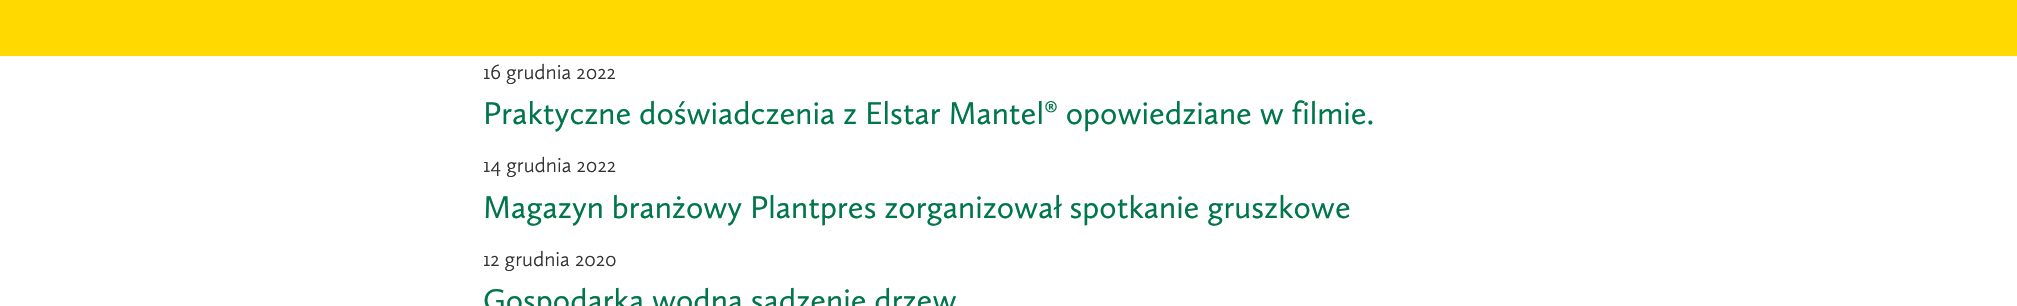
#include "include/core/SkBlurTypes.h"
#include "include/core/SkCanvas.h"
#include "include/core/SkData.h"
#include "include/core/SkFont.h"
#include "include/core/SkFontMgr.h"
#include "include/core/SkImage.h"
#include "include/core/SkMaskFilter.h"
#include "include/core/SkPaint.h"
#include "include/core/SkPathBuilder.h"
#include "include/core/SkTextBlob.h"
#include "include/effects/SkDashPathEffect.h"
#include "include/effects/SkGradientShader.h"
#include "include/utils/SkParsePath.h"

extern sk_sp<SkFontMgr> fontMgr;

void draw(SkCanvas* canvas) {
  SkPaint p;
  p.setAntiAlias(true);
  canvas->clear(SK_ColorWHITE);
  p.setColor(SkColorSetRGB(255, 217, 0));
  canvas->drawRect(SkRect::MakeLTRB(0, 0, 2017, 56), p);
  SkFont font1(fontMgr->matchFamilyStyle("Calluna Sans", SkFontStyle(300, SkFontStyle::kNormal_Width, SkFontStyle::kUpright_Slant)), 21.25f);
  font1.setSubpixel(true);
  p.setColor(SkColorSetRGB(51, 51, 51));
  canvas->drawString("16 grudnia 2022", 483, 79, font1, p);
  SkFont font2(fontMgr->matchFamilyStyle("Calluna Sans", SkFontStyle::Normal()), 32.5f);
  font2.setSubpixel(true);
  p.setColor(SkColorSetRGB(0, 118, 74));
  canvas->drawString("Praktyczne doświadczenia z Elstar Mantel® opowiedziane w filmie.", 483, 124, font2, p);
  p.setColor(SkColorSetRGB(51, 51, 51));
  canvas->drawString("14 grudnia 2022", 483, 172, font1, p);
  p.setColor(SkColorSetRGB(0, 118, 74));
  canvas->drawString("Magazyn branżowy Plantpres zorganizował spotkanie gruszkowe", 483, 218, font2, p);
  p.setColor(SkColorSetRGB(51, 51, 51));
  canvas->drawString("12 grudnia 2020", 483, 266, font1, p);
  p.setColor(SkColorSetRGB(0, 118, 74));
  canvas->drawString("Gospodarka wodna sadzenie drzew", 483, 311, font2, p);
}
